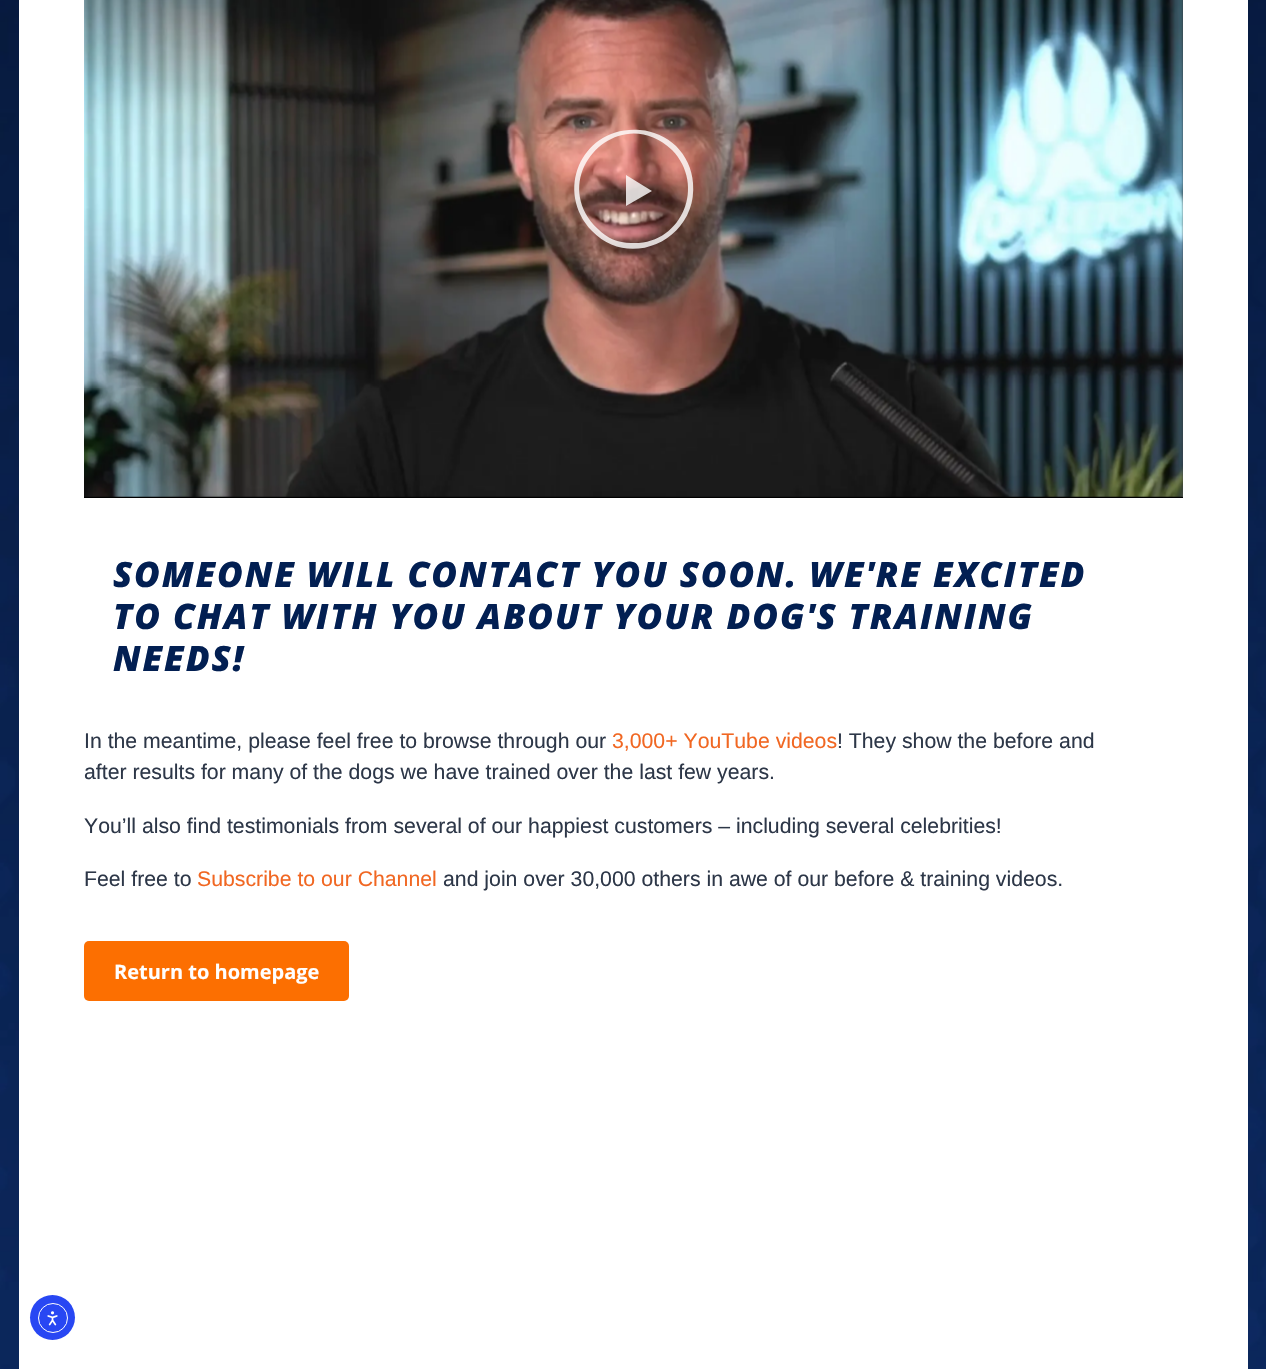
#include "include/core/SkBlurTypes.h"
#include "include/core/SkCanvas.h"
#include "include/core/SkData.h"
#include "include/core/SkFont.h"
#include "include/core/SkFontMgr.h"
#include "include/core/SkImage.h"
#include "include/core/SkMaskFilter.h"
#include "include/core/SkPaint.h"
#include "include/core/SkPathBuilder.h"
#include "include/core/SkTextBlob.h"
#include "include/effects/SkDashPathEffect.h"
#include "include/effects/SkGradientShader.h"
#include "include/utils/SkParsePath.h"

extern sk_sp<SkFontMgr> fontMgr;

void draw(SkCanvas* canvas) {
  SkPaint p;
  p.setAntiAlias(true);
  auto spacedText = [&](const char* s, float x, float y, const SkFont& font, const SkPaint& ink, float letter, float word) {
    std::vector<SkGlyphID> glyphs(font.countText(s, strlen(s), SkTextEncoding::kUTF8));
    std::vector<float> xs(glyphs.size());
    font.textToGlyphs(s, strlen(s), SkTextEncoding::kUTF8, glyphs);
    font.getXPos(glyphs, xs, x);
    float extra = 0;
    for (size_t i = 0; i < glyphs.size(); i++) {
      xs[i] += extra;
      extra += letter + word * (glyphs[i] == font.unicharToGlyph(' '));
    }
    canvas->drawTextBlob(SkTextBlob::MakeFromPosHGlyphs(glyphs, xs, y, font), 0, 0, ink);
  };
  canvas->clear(SK_ColorWHITE);
  canvas->drawImageRect(SkImages::DeferredFromEncodedData(SkData::MakeFromFileName("images/1.png")), SkRect::MakeLTRB(0, 0, 1266, 1369), SkSamplingOptions());
  p.setColor(SK_ColorWHITE);
  canvas->drawRect(SkRect::MakeLTRB(19, 0, 1248, 1369), p);
  p.setColor(SK_ColorBLACK);
  canvas->drawRect(SkRect::MakeLTRB(84, 497, 1183, 498), p);
  canvas->drawImageRect(SkImages::DeferredFromEncodedData(SkData::MakeFromFileName("images/2.png")), SkRect::MakeLTRB(84, 0, 1183, 497), SkSamplingOptions());
  canvas->drawImageRect(SkImages::DeferredFromEncodedData(SkData::MakeFromFileName("images/3.png")), SkRect::MakeLTRB(84, 0, 1183, 497), SkSamplingOptions());
  p.setColor(SkColorSetARGB(204, 255, 255, 255));
  canvas->drawPath(SkPathBuilder().moveTo(676, 146).cubicTo(666, 137, 654, 131, 640, 130).cubicTo(583, 125, 553, 190, 592, 231).cubicTo(630, 271, 698, 239, 693, 183).cubicTo(692, 169, 686, 156, 676, 146).close().moveTo(672, 150).cubicTo(707, 186, 681, 246, 631, 243).cubicTo(618, 243, 607, 238, 598, 229).cubicTo(544, 177, 619, 99, 672, 150).close().moveTo(626, 175).lineTo(626, 206).lineTo(652, 191).close().detach(), p);
  p.setColor(SkColorSetRGB(252, 111, 1));
  canvas->drawRoundRect(SkRect::MakeLTRB(84, 941, 349, 1001), 5, 5, p);
  p.setColor(SkColorSetRGB(40, 71, 243));
  canvas->drawCircle(52.5f, 1317.5f, 22.5f, p);
  p.setStyle(SkPaint::kStroke_Style);
  p.setStrokeWidth(1);
  p.setColor(SK_ColorWHITE);
  canvas->drawCircle(53, 1318, 14.5f, p);
  canvas->drawImageRect(SkImages::DeferredFromEncodedData(SkData::MakeFromFileName("images/4.png")), SkRect::MakeLTRB(47, 1311, 58, 1326), SkSamplingOptions());
  SkFont font1(fontMgr->matchFamilyStyle("Open Sans", SkFontStyle(800, SkFontStyle::kNormal_Width, SkFontStyle::kItalic_Slant)), 35);
  font1.setSubpixel(true);
  p.setStyle(SkPaint::kFill_Style);
  p.setColor(SkColorSetRGB(2, 31, 82));
  spacedText("SOMEONE WILL CONTACT YOU SOON. WE'RE EXCITED", 113, 587, font1, p, 1.9f, 0);
  spacedText("TO CHAT WITH YOU ABOUT YOUR DOG'S TRAINING", 113, 629, font1, p, 1.9f, 0);
  spacedText("NEEDS!", 113, 671, font1, p, 1.9f, 0);
  SkFont font2(fontMgr->matchFamilyStyle("Liberation Sans", SkFontStyle::Normal()), 21.25f);
  font2.setSubpixel(true);
  p.setColor(SkColorSetRGB(45, 55, 72));
  canvas->drawString("In the meantime, please feel free to browse through our", 84, 748, font2, p);
  p.setColor(SkColorSetRGB(241, 103, 34));
  canvas->drawString("3,000+ YouTube videos", 612, 748, font2, p);
  p.setColor(SkColorSetRGB(45, 55, 72));
  canvas->drawString("! They show the before and", 837, 748, font2, p);
  canvas->drawString("after results for many of the dogs we have trained over the last few years.", 84, 779, font2, p);
  canvas->drawString("You’ll also find testimonials from several of our happiest customers – including several celebrities!", 84, 833, font2, p);
  canvas->drawString("Feel free to", 84, 886, font2, p);
  p.setColor(SkColorSetRGB(241, 103, 34));
  canvas->drawString("Subscribe to our Channel", 197, 886, font2, p);
  p.setColor(SkColorSetRGB(45, 55, 72));
  canvas->drawString("and join over 30,000 others in awe of our before & training videos.", 443, 886, font2, p);
  SkFont font3(fontMgr->matchFamilyStyle("Open Sans", SkFontStyle::Bold()), 20);
  font3.setSubpixel(true);
  p.setColor(SK_ColorWHITE);
  canvas->drawString("Return to homepage", 114, 979, font3, p);
}
